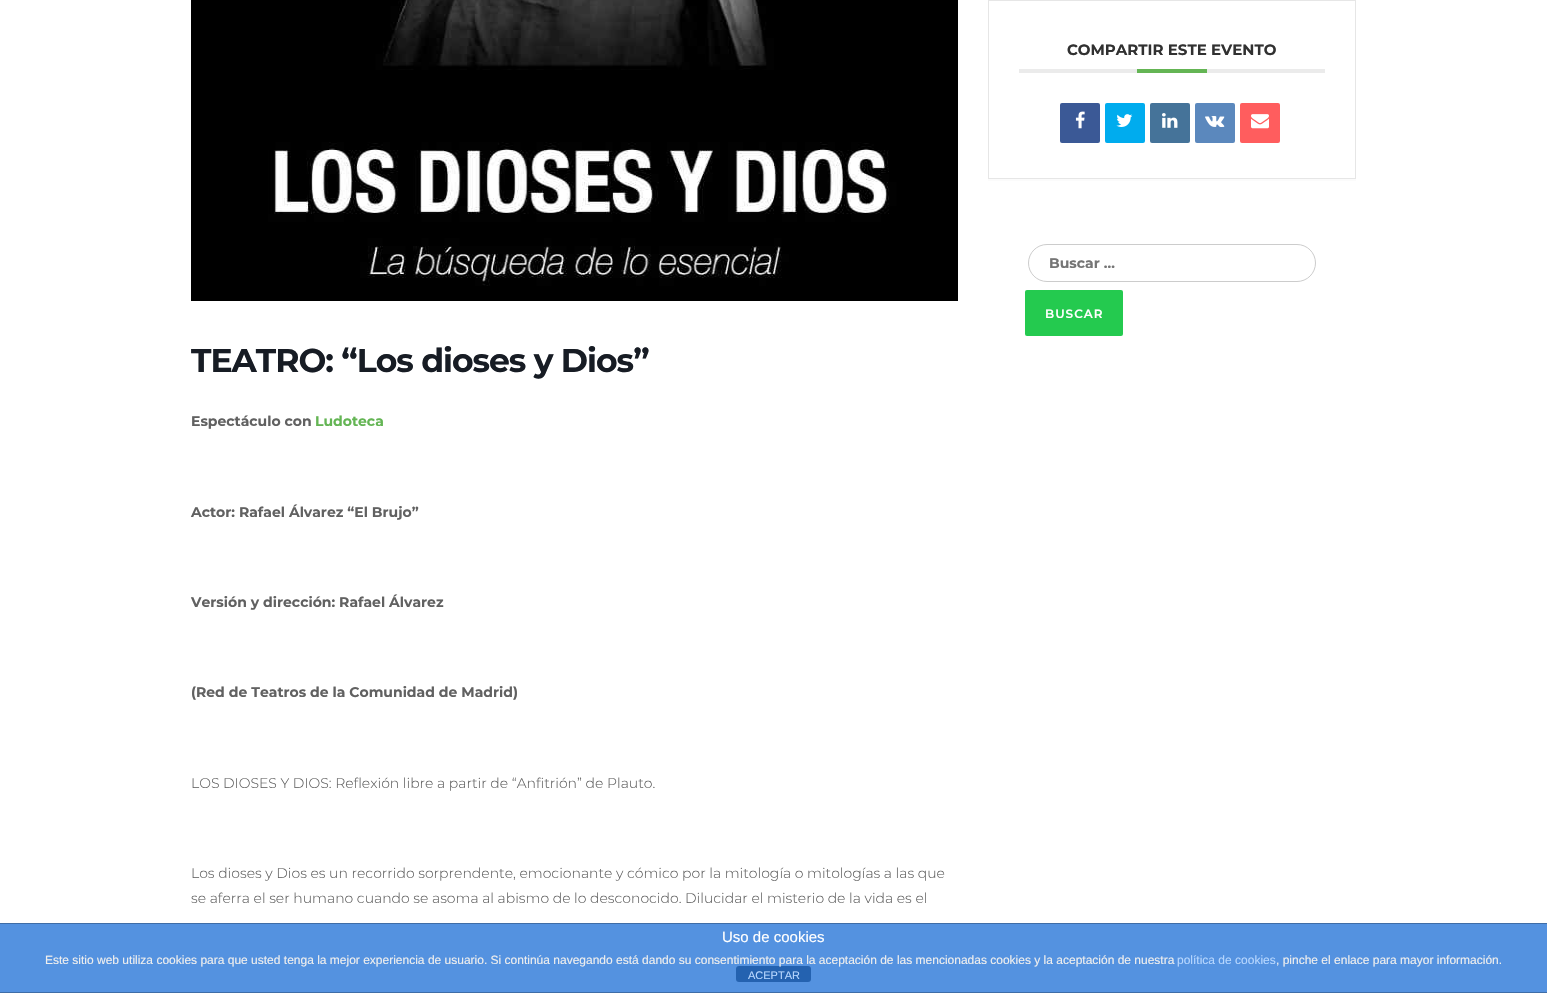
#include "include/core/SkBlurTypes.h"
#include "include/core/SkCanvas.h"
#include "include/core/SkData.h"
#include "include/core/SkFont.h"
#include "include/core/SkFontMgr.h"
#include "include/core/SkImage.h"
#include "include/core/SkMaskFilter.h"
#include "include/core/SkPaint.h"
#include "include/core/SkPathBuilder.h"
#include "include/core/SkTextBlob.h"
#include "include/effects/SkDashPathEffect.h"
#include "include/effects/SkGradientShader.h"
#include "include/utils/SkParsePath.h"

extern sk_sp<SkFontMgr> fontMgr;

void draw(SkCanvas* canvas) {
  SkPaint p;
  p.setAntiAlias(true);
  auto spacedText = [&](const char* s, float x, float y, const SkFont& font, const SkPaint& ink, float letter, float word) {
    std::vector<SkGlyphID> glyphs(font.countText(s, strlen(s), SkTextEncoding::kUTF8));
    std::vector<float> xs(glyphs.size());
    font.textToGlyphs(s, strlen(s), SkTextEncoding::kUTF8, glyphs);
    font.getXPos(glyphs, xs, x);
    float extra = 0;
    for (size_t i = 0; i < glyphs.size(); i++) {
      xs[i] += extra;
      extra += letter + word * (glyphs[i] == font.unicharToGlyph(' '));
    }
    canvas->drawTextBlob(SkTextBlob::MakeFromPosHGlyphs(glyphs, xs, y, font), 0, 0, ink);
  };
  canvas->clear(SK_ColorWHITE);
  p.setColor(SkColorSetRGB(251, 251, 251));
  canvas->drawRect(SkRect::MakeLTRB(988, 179, 1356, 181), p);
  p.setStyle(SkPaint::kStroke_Style);
  p.setStrokeWidth(1);
  p.setColor(SkColorSetRGB(230, 230, 230));
  canvas->drawRect(SkRect::MakeLTRB(988.5f, 0.5f, 1355.5f, 178.5f), p);
  p.setStyle(SkPaint::kFill_Style);
  p.setColor(SkColorSetRGB(235, 235, 235));
  canvas->drawRect(SkRect::MakeLTRB(1019, 69, 1325, 73), p);
  p.setColor(SkColorSetRGB(100, 181, 84));
  canvas->drawRect(SkRect::MakeLTRB(1137, 69, 1207, 73), p);
  p.setColor(SkColorSetRGB(59, 89, 150));
  canvas->drawRoundRect(SkRect::MakeLTRB(1060, 103, 1100, 143), 2, 2, p);
  canvas->drawImageRect(SkImages::DeferredFromEncodedData(SkData::MakeFromFileName("images/1.png")), SkRect::MakeLTRB(1075, 111, 1085, 129), SkSamplingOptions());
  p.setColor(SkColorSetRGB(0, 172, 238));
  canvas->drawRoundRect(SkRect::MakeLTRB(1105, 103, 1145, 143), 2, 2, p);
  canvas->drawImageRect(SkImages::DeferredFromEncodedData(SkData::MakeFromFileName("images/2.png")), SkRect::MakeLTRB(1116, 114, 1133, 127), SkSamplingOptions());
  p.setColor(SkColorSetRGB(69, 115, 153));
  canvas->drawRoundRect(SkRect::MakeLTRB(1150, 103, 1190, 143), 2, 2, p);
  canvas->drawImageRect(SkImages::DeferredFromEncodedData(SkData::MakeFromFileName("images/3.png")), SkRect::MakeLTRB(1162, 113, 1178, 128), SkSamplingOptions());
  p.setColor(SkColorSetRGB(91, 136, 189));
  canvas->drawRoundRect(SkRect::MakeLTRB(1195, 103, 1235, 143), 2, 2, p);
  canvas->drawImageRect(SkImages::DeferredFromEncodedData(SkData::MakeFromFileName("images/4.png")), SkRect::MakeLTRB(1205, 116, 1225, 127), SkSamplingOptions());
  p.setColor(SkColorSetRGB(255, 93, 94));
  canvas->drawRoundRect(SkRect::MakeLTRB(1240, 103, 1280, 143), 2, 2, p);
  canvas->drawImageRect(SkImages::DeferredFromEncodedData(SkData::MakeFromFileName("images/5.png")), SkRect::MakeLTRB(1251, 114, 1269, 129), SkSamplingOptions());
  p.setStyle(SkPaint::kStroke_Style);
  p.setColor(SkColorSetRGB(204, 204, 204));
  canvas->drawRoundRect(SkRect::MakeLTRB(1028.5f, 244.5f, 1315.5f, 281.5f), 18.5f, 18.5f, p);
  p.setStyle(SkPaint::kFill_Style);
  p.setColor(SkColorSetRGB(36, 202, 79));
  canvas->drawRoundRect(SkRect::MakeLTRB(1025, 290, 1123, 336), 2, 2, p);
  canvas->drawImageRect(SkImages::DeferredFromEncodedData(SkData::MakeFromFileName("images/6.png")), SkRect::MakeLTRB(191, 0, 958, 301), SkSamplingOptions());
  p.setColor(SkColorSetRGB(84, 146, 224));
  canvas->drawRect(SkRect::MakeLTRB(0, 924, 1547, 992), p);
  p.setColor(SkColorSetRGB(63, 109, 167));
  canvas->drawRect(SkRect::MakeLTRB(0, 923, 1547, 924), p);
  canvas->drawRect(SkRect::MakeLTRB(0, 992, 1547, 993), p);
  p.setColor(SkColorSetRGB(36, 98, 176));
  canvas->drawRoundRect(SkRect::MakeLTRB(736, 966, 811, 982), 3, 3, p);
  SkFont font1(fontMgr->matchFamilyStyle("Montserrat", SkFontStyle::Bold()), 15);
  font1.setSubpixel(true);
  p.setColor(SkColorSetRGB(49, 49, 49));
  canvas->drawString("COMPARTIR ESTE EVENTO", 1067, 55, font1, p);
  SkFont font2(fontMgr->matchFamilyStyle("Montserrat", SkFontStyle::Bold()), 14);
  font2.setSubpixel(true);
  p.setColor(SkColorSetRGB(117, 117, 117));
  canvas->drawString("Buscar …", 1049, 268, font2, p);
  SkFont font3(fontMgr->matchFamilyStyle("Montserrat", SkFontStyle(600, SkFontStyle::kNormal_Width, SkFontStyle::kUpright_Slant)), 12);
  font3.setSubpixel(true);
  p.setColor(SK_ColorWHITE);
  spacedText("BUSCAR", 1045, 318, font3, p, 1, 0);
  SkFont font4(fontMgr->matchFamilyStyle("Montserrat", SkFontStyle::Bold()), 33);
  font4.setSubpixel(true);
  p.setColor(SkColorSetRGB(23, 28, 36));
  spacedText("TEATRO: “Los dioses y Dios”", 191, 372, font4, p, -1, 0);
  p.setColor(SkColorSetRGB(97, 97, 97));
  canvas->drawString("Espectáculo con", 191, 426, font2, p);
  p.setColor(SkColorSetRGB(100, 181, 84));
  canvas->drawString("Ludoteca", 315, 426, font2, p);
  p.setColor(SkColorSetRGB(97, 97, 97));
  canvas->drawString("Actor: Rafael Álvarez “El Brujo”", 191, 517, font2, p);
  canvas->drawString("Versión y dirección: Rafael Álvarez", 191, 607, font2, p);
  canvas->drawString("(Red de Teatros de la Comunidad de Madrid)", 191, 697, font2, p);
  SkFont font5(fontMgr->matchFamilyStyle("Montserrat", SkFontStyle(300, SkFontStyle::kNormal_Width, SkFontStyle::kUpright_Slant)), 14);
  font5.setSubpixel(true);
  canvas->drawString("LOS DIOSES Y DIOS: Reflexión libre a partir de “Anfitrión” de Plauto.", 191, 788, font5, p);
  canvas->drawString("Los dioses y Dios es un recorrido sorprendente, emocionante y cómico por la mitología o mitologías a las que", 191, 878, font5, p);
  canvas->drawString("se aferra el ser humano cuando se asoma al abismo de lo desconocido. Dilucidar el misterio de la vida es el", 191, 903, font5, p);
  SkFont font6(fontMgr->matchFamilyStyle("Liberation Sans", SkFontStyle::Normal()), 15);
  font6.setSubpixel(true);
  p.setColor(SK_ColorWHITE);
  canvas->drawString("Uso de cookies", 722, 942, font6, p);
  SkFont font7(fontMgr->matchFamilyStyle("Liberation Sans", SkFontStyle::Normal()), 12);
  font7.setSubpixel(true);
  p.setColor(SkColorSetRGB(238, 238, 238));
  canvas->drawString("Este sitio web utiliza cookies para que usted tenga la mejor experiencia de usuario. Si continúa navegando está dando su consentimiento para la aceptación de las mencionadas cookies y la aceptación de nuestra", 45, 964, font7, p);
  p.setColor(SkColorSetRGB(183, 215, 255));
  canvas->drawString("política de cookies", 1177, 964, font7, p);
  p.setColor(SkColorSetRGB(238, 238, 238));
  canvas->drawString(", pinche el enlace para mayor información.", 1276, 964, font7, p);
  SkFont font8(fontMgr->matchFamilyStyle("Liberation Sans", SkFontStyle::Normal()), 11);
  font8.setSubpixel(true);
  p.setColor(SkColorSetRGB(183, 215, 255));
  canvas->drawString("ACEPTAR", 748, 979, font8, p);
}
